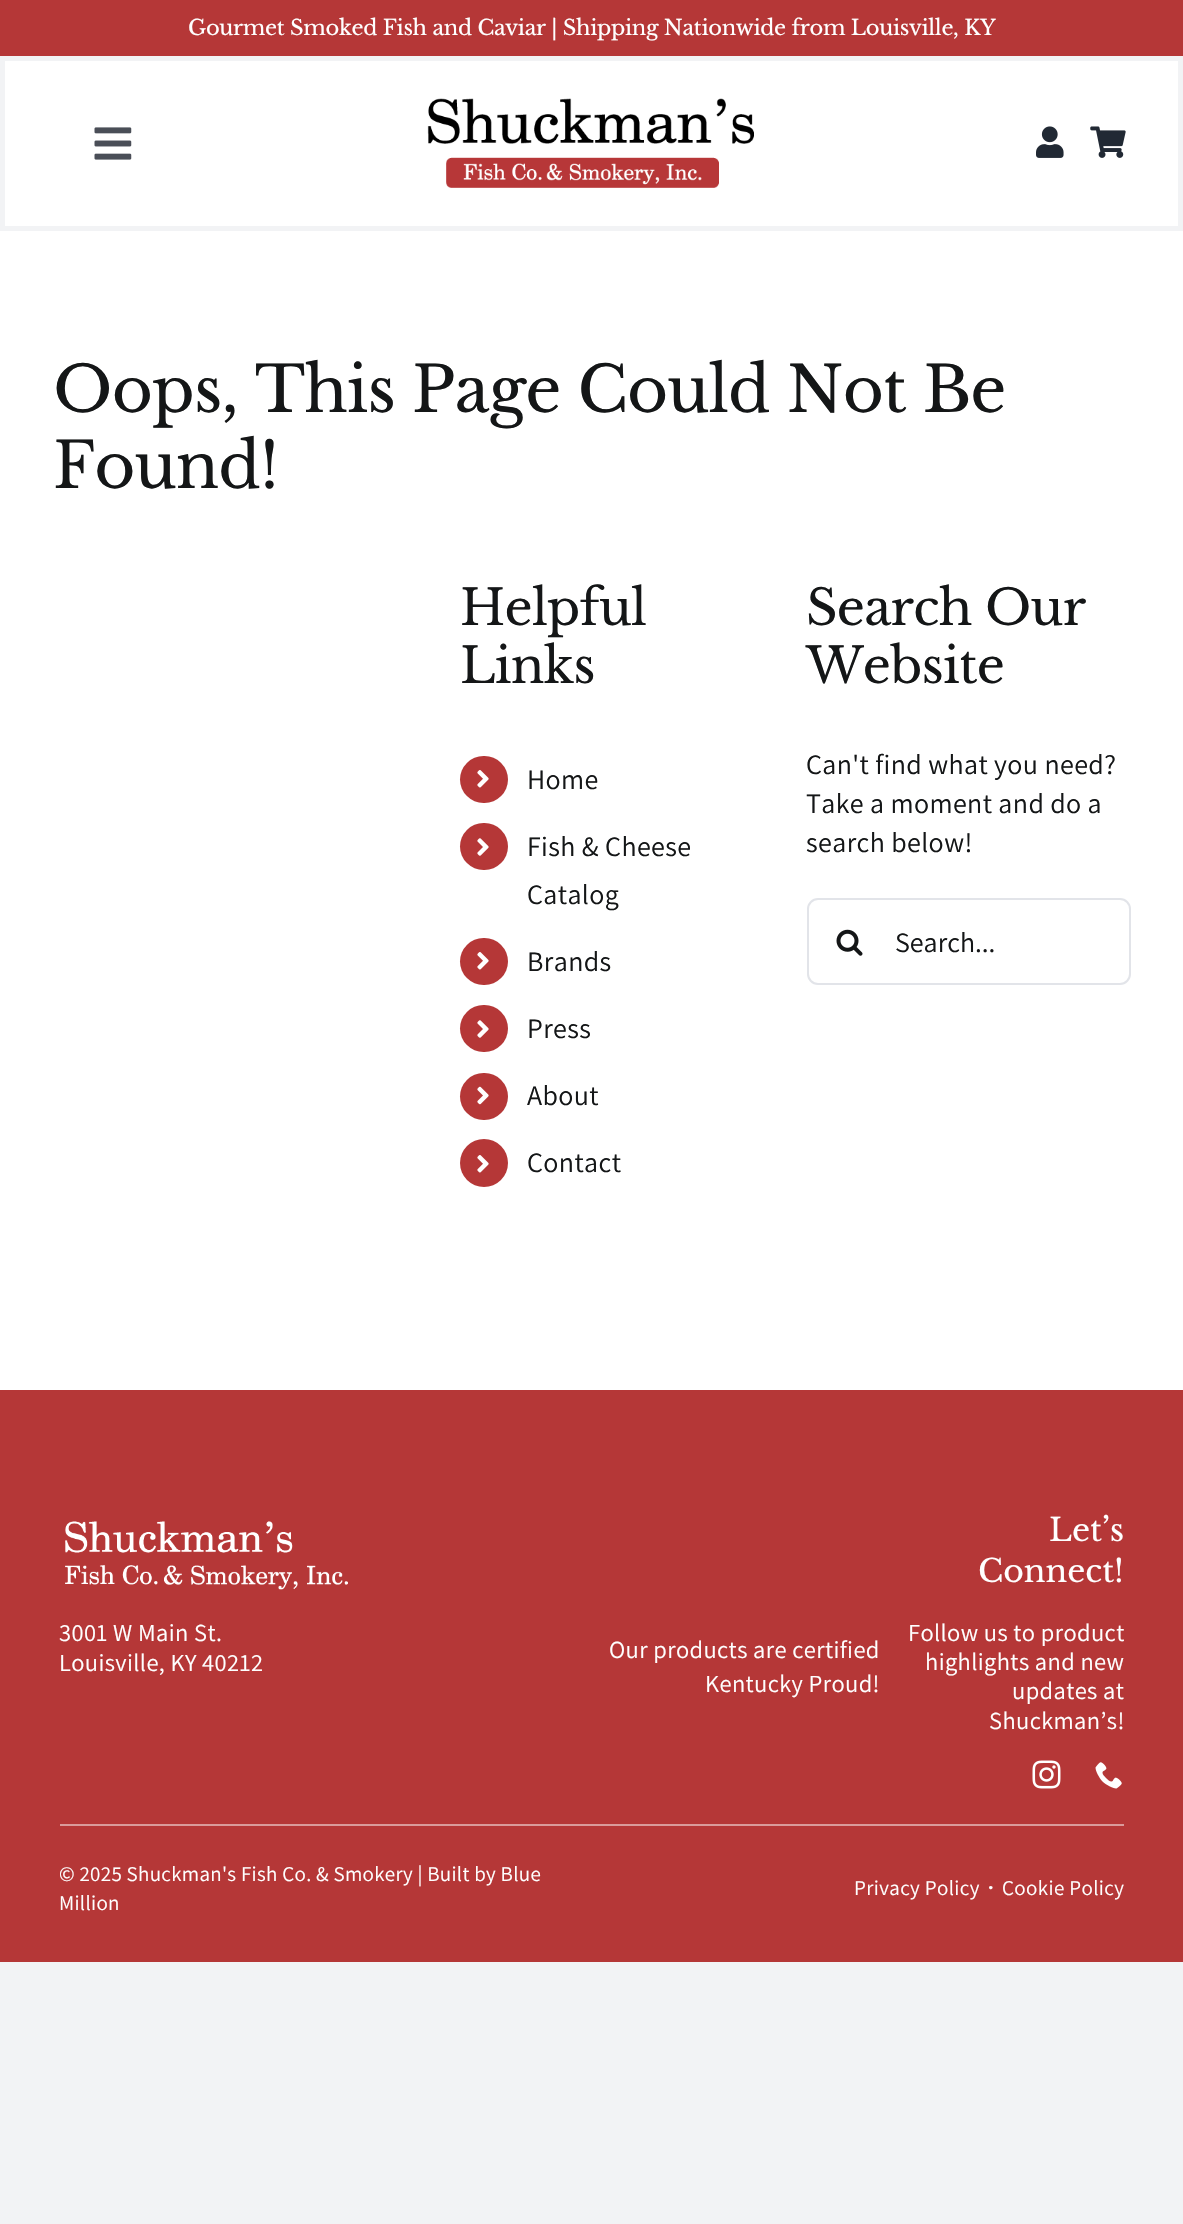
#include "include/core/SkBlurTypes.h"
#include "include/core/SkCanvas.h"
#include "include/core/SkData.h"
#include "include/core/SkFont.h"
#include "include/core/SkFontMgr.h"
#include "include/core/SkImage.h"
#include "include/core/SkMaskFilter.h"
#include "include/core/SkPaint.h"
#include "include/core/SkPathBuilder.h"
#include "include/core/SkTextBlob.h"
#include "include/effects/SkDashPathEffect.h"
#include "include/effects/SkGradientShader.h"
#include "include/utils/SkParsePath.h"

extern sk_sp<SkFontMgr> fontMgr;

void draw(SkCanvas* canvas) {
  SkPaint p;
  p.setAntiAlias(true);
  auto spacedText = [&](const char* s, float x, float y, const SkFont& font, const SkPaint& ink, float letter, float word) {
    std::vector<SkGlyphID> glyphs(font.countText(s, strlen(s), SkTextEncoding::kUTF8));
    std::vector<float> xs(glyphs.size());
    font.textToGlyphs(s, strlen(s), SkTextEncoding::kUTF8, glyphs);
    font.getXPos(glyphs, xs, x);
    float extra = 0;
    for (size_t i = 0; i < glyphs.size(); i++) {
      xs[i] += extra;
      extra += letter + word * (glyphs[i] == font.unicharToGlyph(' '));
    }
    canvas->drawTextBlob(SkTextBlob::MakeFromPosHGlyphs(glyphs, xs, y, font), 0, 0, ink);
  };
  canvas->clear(SkColorSetRGB(242, 243, 245));
  p.setColor(SK_ColorWHITE);
  canvas->drawRect(SkRect::MakeLTRB(0, 61, 1183, 1390), p);
  p.setColor(SkColorSetRGB(181, 55, 55));
  canvas->drawRect(SkRect::MakeLTRB(0, 0, 1183, 56), p);
  p.setStyle(SkPaint::kStroke_Style);
  p.setStrokeWidth(5);
  p.setColor(SkColorSetRGB(242, 243, 245));
  canvas->drawRect(SkRect::MakeLTRB(2.5f, 58.5f, 1180.5f, 228.5f), p);
  canvas->drawImageRect(SkImages::DeferredFromEncodedData(SkData::MakeFromFileName("images/1.png")), SkRect::MakeLTRB(94, 127, 132, 160), SkSamplingOptions());
  canvas->drawImageRect(SkImages::DeferredFromEncodedData(SkData::MakeFromFileName("images/2.png")), SkRect::MakeLTRB(427, 98, 754, 188), SkSamplingOptions());
  canvas->drawImageRect(SkImages::DeferredFromEncodedData(SkData::MakeFromFileName("images/3.png")), SkRect::MakeLTRB(1036, 126, 1064, 158), SkSamplingOptions());
  canvas->drawImageRect(SkImages::DeferredFromEncodedData(SkData::MakeFromFileName("images/4.png")), SkRect::MakeLTRB(1090, 126, 1126, 158), SkSamplingOptions());
  p.setStyle(SkPaint::kFill_Style);
  p.setColor(SkColorSetRGB(181, 55, 55));
  canvas->drawRoundRect(SkRect::MakeLTRB(460, 756, 508, 803), 23.5f, 23.5f, p);
  canvas->drawImageRect(SkImages::DeferredFromEncodedData(SkData::MakeFromFileName("images/5.png")), SkRect::MakeLTRB(477, 770, 489, 788), SkSamplingOptions());
  canvas->drawRoundRect(SkRect::MakeLTRB(460, 823, 508, 870), 23.5f, 23.5f, p);
  canvas->drawImageRect(SkImages::DeferredFromEncodedData(SkData::MakeFromFileName("images/6.png")), SkRect::MakeLTRB(477, 838, 489, 856), SkSamplingOptions());
  canvas->drawRoundRect(SkRect::MakeLTRB(460, 938, 508, 985), 23.5f, 23.5f, p);
  canvas->drawImageRect(SkImages::DeferredFromEncodedData(SkData::MakeFromFileName("images/5.png")), SkRect::MakeLTRB(477, 952, 489, 970), SkSamplingOptions());
  canvas->drawRoundRect(SkRect::MakeLTRB(460, 1005, 508, 1052), 23.5f, 23.5f, p);
  canvas->drawImageRect(SkImages::DeferredFromEncodedData(SkData::MakeFromFileName("images/6.png")), SkRect::MakeLTRB(477, 1020, 489, 1038), SkSamplingOptions());
  canvas->drawRoundRect(SkRect::MakeLTRB(460, 1073, 508, 1120), 23.5f, 23.5f, p);
  canvas->drawImageRect(SkImages::DeferredFromEncodedData(SkData::MakeFromFileName("images/7.png")), SkRect::MakeLTRB(477, 1086, 489, 1105), SkSamplingOptions());
  canvas->drawCircle(484, 1163, 24, p);
  canvas->drawImageRect(SkImages::DeferredFromEncodedData(SkData::MakeFromFileName("images/5.png")), SkRect::MakeLTRB(477, 1155, 489, 1173), SkSamplingOptions());
  p.setStyle(SkPaint::kStroke_Style);
  p.setStrokeWidth(2);
  p.setColor(SkColorSetRGB(226, 228, 233));
  canvas->drawRoundRect(SkRect::MakeLTRB(808, 899, 1130, 984), 10, 10, p);
  canvas->drawImageRect(SkImages::DeferredFromEncodedData(SkData::MakeFromFileName("images/8.png")), SkRect::MakeLTRB(836, 929, 863, 956), SkSamplingOptions());
  p.setStyle(SkPaint::kFill_Style);
  p.setColor(SkColorSetRGB(181, 55, 55));
  canvas->drawRect(SkRect::MakeLTRB(0, 1390, 1183, 1962), p);
  canvas->drawImageRect(SkImages::DeferredFromEncodedData(SkData::MakeFromFileName("images/9.png")), SkRect::MakeLTRB(65, 1521, 348, 1590), SkSamplingOptions());
  canvas->drawImageRect(SkImages::DeferredFromEncodedData(SkData::MakeFromFileName("images/10.png")), SkRect::MakeLTRB(1032, 1760, 1061, 1789), SkSamplingOptions());
  canvas->drawImageRect(SkImages::DeferredFromEncodedData(SkData::MakeFromFileName("images/11.png")), SkRect::MakeLTRB(1095, 1762, 1122, 1789), SkSamplingOptions());
  p.setColor(SkColorSetRGB(218, 155, 155));
  canvas->drawRect(SkRect::MakeLTRB(60, 1824, 1124, 1826), p);
  SkFont font1(fontMgr->matchFamilyStyle("Libre Baskerville", SkFontStyle::Normal()), 21);
  font1.setSubpixel(true);
  p.setColor(SK_ColorWHITE);
  spacedText("Gourmet Smoked Fish and Caviar | Shipping Nationwide from Louisville, KY", 188, 35, font1, p, -0.32f, 0);
  SkFont font2(fontMgr->matchFamilyStyle("Libre Baskerville", SkFontStyle::Normal()), 63);
  font2.setSubpixel(true);
  p.setColor(SkColorSetRGB(20, 22, 23));
  spacedText("Oops, This Page Could Not Be", 53, 412, font2, p, -0.95f, 0);
  spacedText("Found!", 53, 488, font2, p, -0.95f, 0);
  SkFont font3(fontMgr->matchFamilyStyle("Libre Baskerville", SkFontStyle::Normal()), 49);
  font3.setSubpixel(true);
  spacedText("Helpful", 460, 625, font3, p, -0.75f, 0);
  spacedText("Links", 460, 683, font3, p, -0.75f, 0);
  SkFont font4(fontMgr->matchFamilyStyle("Assistant", SkFontStyle::Normal()), 28);
  font4.setSubpixel(true);
  spacedText("Home", 527, 789, font4, p, 0.4f, 0);
  spacedText("Fish & Cheese", 527, 856, font4, p, 0.4f, 0);
  spacedText("Catalog", 527, 904, font4, p, 0.4f, 0);
  spacedText("Brands", 527, 971, font4, p, 0.4f, 0);
  spacedText("Press", 527, 1038, font4, p, 0.4f, 0);
  spacedText("About", 527, 1105, font4, p, 0.4f, 0);
  spacedText("Contact", 527, 1172, font4, p, 0.4f, 0);
  spacedText("Search Our", 806, 625, font3, p, -0.75f, 0);
  spacedText("Website", 806, 683, font3, p, -0.75f, 0);
  spacedText("Can't find what you need?", 806, 774, font4, p, 0.4f, 0);
  spacedText("Take a moment and do a", 806, 813, font4, p, 0.4f, 0);
  spacedText("search below!", 806, 852, font4, p, 0.4f, 0);
  canvas->drawString("Search...", 895, 952, font4, p);
  SkFont font5(fontMgr->matchFamilyStyle("Assistant", SkFontStyle::Normal()), 24.5f);
  font5.setSubpixel(true);
  p.setColor(SK_ColorWHITE);
  spacedText("3001 W Main St.", 59, 1641, font5, p, 0.4f, 0);
  spacedText("Louisville, KY 40212", 59, 1671, font5, p, 0.4f, 0);
  spacedText("Our products are certified", 609, 1658, font5, p, 0.4f, 0);
  spacedText("Kentucky Proud!", 705, 1692, font5, p, 0.4f, 0);
  SkFont font6(fontMgr->matchFamilyStyle("Libre Baskerville", SkFontStyle::Normal()), 31.5f);
  font6.setSubpixel(true);
  canvas->drawString("Let’s", 1049, 1541, font6, p);
  canvas->drawString("Connect!", 978, 1582, font6, p);
  spacedText("Follow us to product", 908, 1641, font5, p, 0.4f, 0);
  spacedText("highlights and new", 925, 1670, font5, p, 0.4f, 0);
  spacedText("updates at", 1012, 1699, font5, p, 0.4f, 0);
  spacedText("Shuckman’s!", 989, 1729, font5, p, 0.4f, 0);
  SkFont font7(fontMgr->matchFamilyStyle("Assistant", SkFontStyle::Normal()), 21);
  font7.setSubpixel(true);
  spacedText("© 2025 Shuckman's Fish Co. & Smokery | Built by Blue", 59, 1881, font7, p, 0.32f, 0);
  spacedText("Million", 59, 1910, font7, p, 0.32f, 0);
  spacedText("Privacy Policy", 854, 1895, font7, p, 0.4f, 0);
  SkFont font8(fontMgr->matchFamilyStyle("WenQuanYi Zen Hei", SkFontStyle(500, SkFontStyle::kNormal_Width, SkFontStyle::kUpright_Slant)), 21);
  font8.setSubpixel(true);
  spacedText("・", 980, 1895, font8, p, 0.4f, 0);
  spacedText("Cookie Policy", 1002, 1895, font7, p, 0.4f, 0);
}
